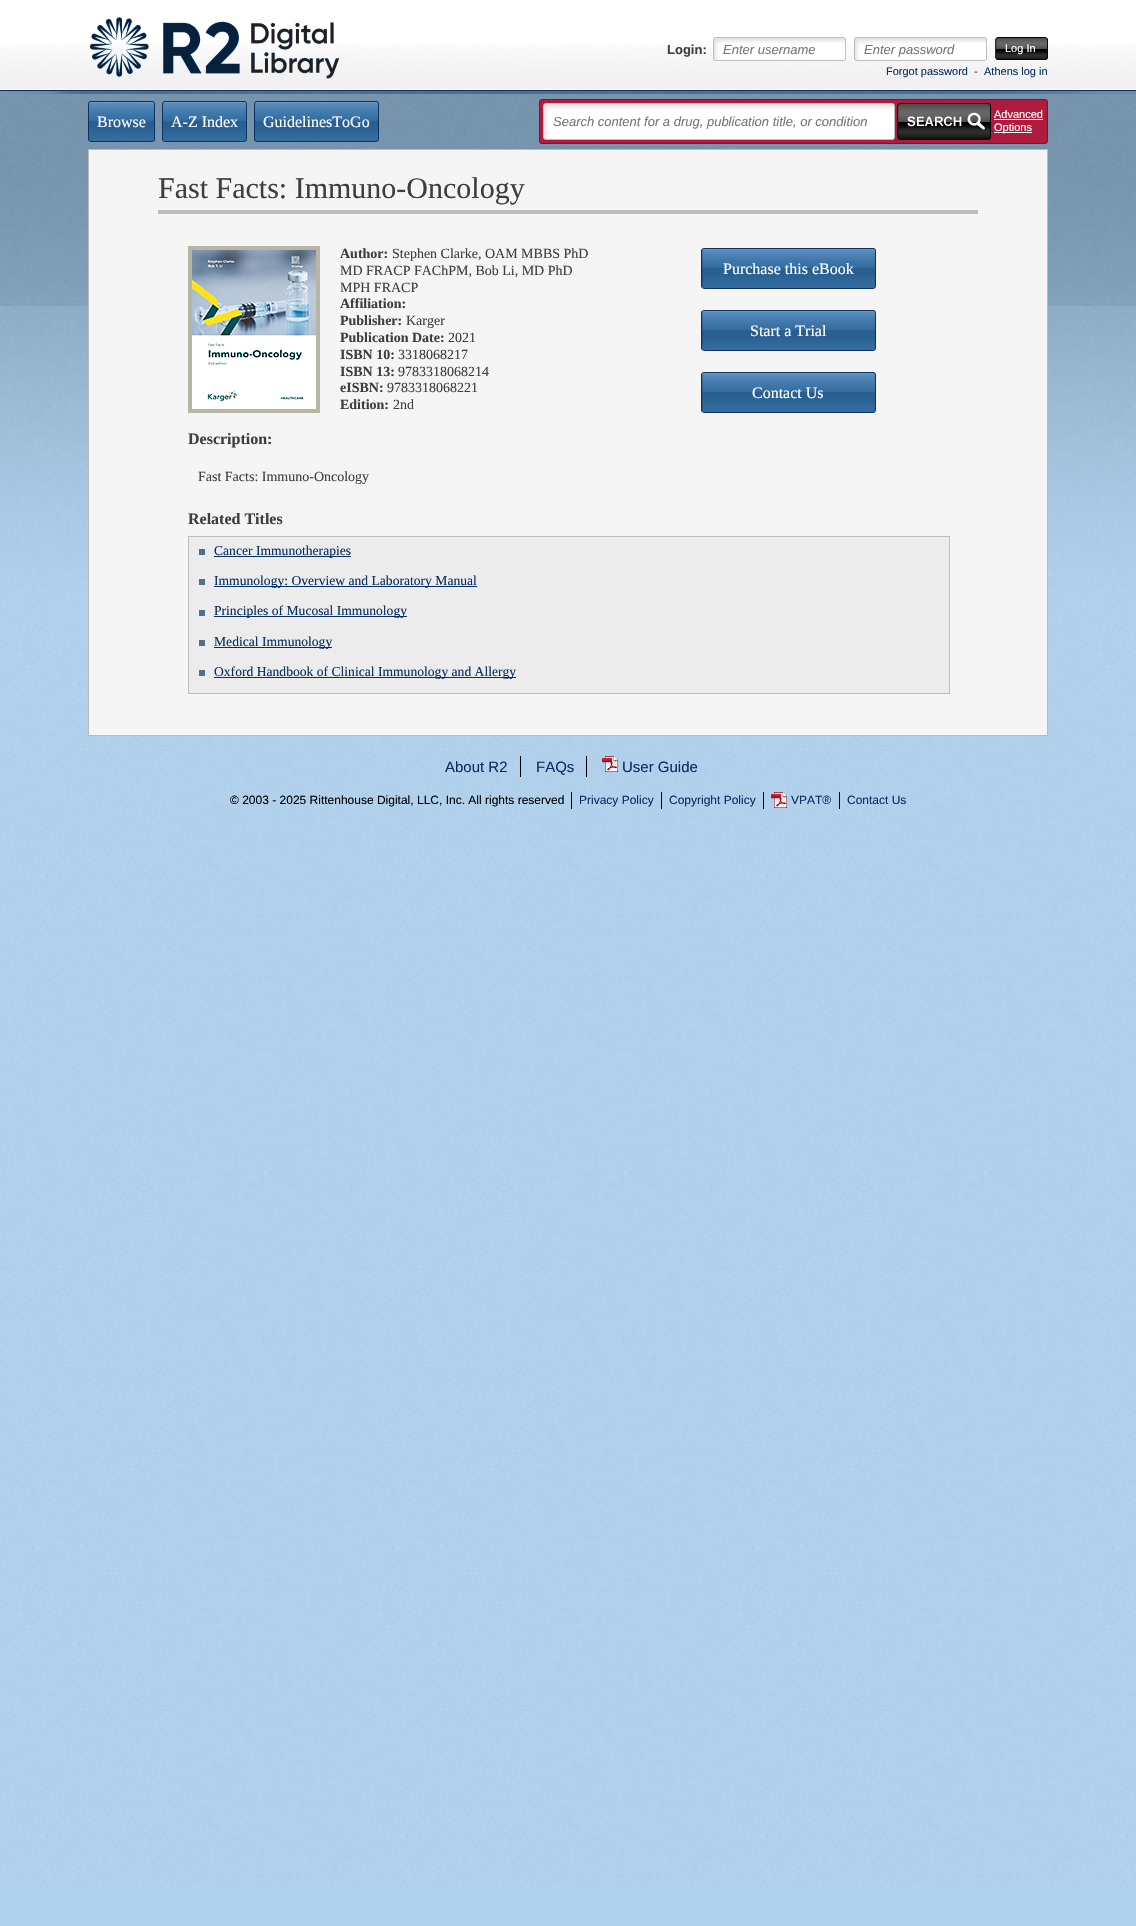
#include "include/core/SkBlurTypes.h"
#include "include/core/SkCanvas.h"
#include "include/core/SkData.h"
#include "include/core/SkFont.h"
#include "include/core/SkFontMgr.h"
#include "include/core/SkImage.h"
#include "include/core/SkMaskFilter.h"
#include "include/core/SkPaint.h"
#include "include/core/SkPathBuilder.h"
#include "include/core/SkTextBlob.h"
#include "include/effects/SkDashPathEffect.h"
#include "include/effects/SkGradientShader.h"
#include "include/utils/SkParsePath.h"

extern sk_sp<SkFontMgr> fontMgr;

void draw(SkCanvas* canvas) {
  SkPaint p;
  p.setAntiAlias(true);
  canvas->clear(SkColorSetRGB(177, 210, 237));
  canvas->drawImageRect(SkImages::DeferredFromEncodedData(SkData::MakeFromFileName("images/1.png")), SkRect::MakeLTRB(0, 587, 1136, 1889), SkSamplingOptions());
  p.setColor(SK_ColorWHITE);
  canvas->drawRect(SkRect::MakeLTRB(0, 0, 1136, 90), p);
  canvas->drawImageRect(SkImages::DeferredFromEncodedData(SkData::MakeFromFileName("images/2.png")), SkRect::MakeLTRB(0, 44, 1136, 89), SkSamplingOptions());
  p.setColor(SkColorSetRGB(13, 46, 89));
  canvas->drawRect(SkRect::MakeLTRB(0, 90, 1136, 91), p);
  canvas->drawImageRect(SkImages::DeferredFromEncodedData(SkData::MakeFromFileName("images/3.png")), SkRect::MakeLTRB(89, 17, 339, 79), SkSamplingOptions());
  canvas->drawImageRect(SkImages::DeferredFromEncodedData(SkData::MakeFromFileName("images/4.png")), SkRect::MakeLTRB(843, 37, 846, 61), SkSamplingOptions());
  canvas->drawImageRect(SkImages::DeferredFromEncodedData(SkData::MakeFromFileName("images/5.png")), SkRect::MakeLTRB(713, 37, 843, 61), SkSamplingOptions());
  canvas->drawImageRect(SkImages::DeferredFromEncodedData(SkData::MakeFromFileName("images/6.png")), SkRect::MakeLTRB(984, 37, 987, 61), SkSamplingOptions());
  canvas->drawImageRect(SkImages::DeferredFromEncodedData(SkData::MakeFromFileName("images/5.png")), SkRect::MakeLTRB(854, 37, 984, 61), SkSamplingOptions());
  canvas->drawImageRect(SkImages::DeferredFromEncodedData(SkData::MakeFromFileName("images/7.png")), SkRect::MakeLTRB(995, 37, 997, 60), SkSamplingOptions());
  canvas->drawImageRect(SkImages::DeferredFromEncodedData(SkData::MakeFromFileName("images/8.png")), SkRect::MakeLTRB(997, 37, 1048, 60), SkSamplingOptions());
  canvas->drawImageRect(SkImages::DeferredFromEncodedData(SkData::MakeFromFileName("images/10.png")), SkRect::MakeLTRB(0, 91, 1136, 587), SkSamplingOptions());
  canvas->drawImageRect(SkImages::DeferredFromEncodedData(SkData::MakeFromFileName("images/9.png")), SkRect::MakeLTRB(8, 91, 1136, 94), SkSamplingOptions());
  canvas->drawImageRect(SkImages::DeferredFromEncodedData(SkData::MakeFromFileName("images/11.png")), SkRect::MakeLTRB(88, 101, 93, 142), SkSamplingOptions());
  canvas->drawImageRect(SkImages::DeferredFromEncodedData(SkData::MakeFromFileName("images/12.png")), SkRect::MakeLTRB(93, 101, 155, 142), SkSamplingOptions());
  canvas->drawImageRect(SkImages::DeferredFromEncodedData(SkData::MakeFromFileName("images/13.png")), SkRect::MakeLTRB(162, 101, 167, 142), SkSamplingOptions());
  canvas->drawImageRect(SkImages::DeferredFromEncodedData(SkData::MakeFromFileName("images/14.png")), SkRect::MakeLTRB(167, 101, 247, 142), SkSamplingOptions());
  canvas->drawImageRect(SkImages::DeferredFromEncodedData(SkData::MakeFromFileName("images/15.png")), SkRect::MakeLTRB(254, 101, 259, 142), SkSamplingOptions());
  canvas->drawImageRect(SkImages::DeferredFromEncodedData(SkData::MakeFromFileName("images/16.png")), SkRect::MakeLTRB(259, 101, 379, 142), SkSamplingOptions());
  canvas->drawImageRect(SkImages::DeferredFromEncodedData(SkData::MakeFromFileName("images/17.png")), SkRect::MakeLTRB(539, 99, 543, 144), SkSamplingOptions());
  canvas->drawImageRect(SkImages::DeferredFromEncodedData(SkData::MakeFromFileName("images/18.png")), SkRect::MakeLTRB(543, 99, 1048, 144), SkSamplingOptions());
  canvas->drawImageRect(SkImages::DeferredFromEncodedData(SkData::MakeFromFileName("images/19.png")), SkRect::MakeLTRB(543, 103, 553, 140), SkSamplingOptions());
  canvas->drawImageRect(SkImages::DeferredFromEncodedData(SkData::MakeFromFileName("images/20.png")), SkRect::MakeLTRB(553, 103, 895, 140), SkSamplingOptions());
  canvas->drawImageRect(SkImages::DeferredFromEncodedData(SkData::MakeFromFileName("images/21.png")), SkRect::MakeLTRB(897, 103, 991, 140), SkSamplingOptions());
  p.setColor(SK_ColorWHITE);
  canvas->drawRect(SkRect::MakeLTRB(994, 119, 1043, 120), p);
  canvas->drawRect(SkRect::MakeLTRB(994, 132, 1032, 133), p);
  p.setColor(SkColorSetRGB(245, 245, 245));
  canvas->drawRect(SkRect::MakeLTRB(88.5f, 149.5f, 1047.5f, 735.5f), p);
  p.setStyle(SkPaint::kStroke_Style);
  p.setStrokeWidth(1);
  p.setColor(SkColorSetRGB(186, 186, 186));
  canvas->drawRect(SkRect::MakeLTRB(88.5f, 149.5f, 1047.5f, 735.5f), p);
  p.setStyle(SkPaint::kFill_Style);
  p.setColor(SkColorSetRGB(190, 190, 190));
  canvas->drawRect(SkRect::MakeLTRB(158, 210, 978, 214), p);
  p.setStyle(SkPaint::kStroke_Style);
  p.setStrokeWidth(4);
  p.setColor(SkColorSetRGB(184, 181, 165));
  canvas->drawRect(SkRect::MakeLTRB(190, 248, 318, 411), p);
  canvas->drawImageRect(SkImages::DeferredFromEncodedData(SkData::MakeFromFileName("images/22.png")), SkRect::MakeLTRB(192, 250, 316, 409), SkSamplingOptions());
  canvas->drawImageRect(SkImages::DeferredFromEncodedData(SkData::MakeFromFileName("images/23.png")), SkRect::MakeLTRB(701, 248, 707, 289), SkSamplingOptions());
  canvas->drawImageRect(SkImages::DeferredFromEncodedData(SkData::MakeFromFileName("images/24.png")), SkRect::MakeLTRB(707, 248, 876, 289), SkSamplingOptions());
  canvas->drawImageRect(SkImages::DeferredFromEncodedData(SkData::MakeFromFileName("images/23.png")), SkRect::MakeLTRB(701, 310, 707, 351), SkSamplingOptions());
  canvas->drawImageRect(SkImages::DeferredFromEncodedData(SkData::MakeFromFileName("images/24.png")), SkRect::MakeLTRB(707, 310, 876, 351), SkSamplingOptions());
  canvas->drawImageRect(SkImages::DeferredFromEncodedData(SkData::MakeFromFileName("images/23.png")), SkRect::MakeLTRB(701, 372, 707, 413), SkSamplingOptions());
  canvas->drawImageRect(SkImages::DeferredFromEncodedData(SkData::MakeFromFileName("images/24.png")), SkRect::MakeLTRB(707, 372, 876, 413), SkSamplingOptions());
  p.setStyle(SkPaint::kFill_Style);
  p.setColor(SkColorSetRGB(236, 236, 236));
  canvas->drawRect(SkRect::MakeLTRB(188.5f, 536.5f, 949.5f, 693.5f), p);
  p.setStyle(SkPaint::kStroke_Style);
  p.setStrokeWidth(1);
  p.setColor(SkColorSetRGB(190, 190, 190));
  canvas->drawRect(SkRect::MakeLTRB(188.5f, 536.5f, 949.5f, 693.5f), p);
  p.setStyle(SkPaint::kFill_Style);
  p.setColor(SkColorSetRGB(79, 113, 144));
  canvas->drawRect(SkRect::MakeLTRB(199, 549, 205, 555), p);
  p.setColor(SkColorSetRGB(7, 47, 98));
  canvas->drawRect(SkRect::MakeLTRB(214, 556, 351, 557), p);
  p.setColor(SkColorSetRGB(79, 113, 144));
  canvas->drawRect(SkRect::MakeLTRB(199, 579, 205, 585), p);
  p.setColor(SkColorSetRGB(7, 47, 98));
  canvas->drawRect(SkRect::MakeLTRB(214, 586, 477, 587), p);
  p.setColor(SkColorSetRGB(79, 113, 144));
  canvas->drawRect(SkRect::MakeLTRB(199, 610, 205, 616), p);
  p.setColor(SkColorSetRGB(7, 47, 98));
  canvas->drawRect(SkRect::MakeLTRB(214, 616, 407, 617), p);
  p.setColor(SkColorSetRGB(79, 113, 144));
  canvas->drawRect(SkRect::MakeLTRB(199, 640, 205, 646), p);
  p.setColor(SkColorSetRGB(7, 47, 98));
  canvas->drawRect(SkRect::MakeLTRB(214, 647, 332, 648), p);
  p.setColor(SkColorSetRGB(79, 113, 144));
  canvas->drawRect(SkRect::MakeLTRB(199, 670, 205, 676), p);
  p.setColor(SkColorSetRGB(7, 47, 98));
  canvas->drawRect(SkRect::MakeLTRB(214, 677, 516, 678), p);
  p.setColor(SkColorSetRGB(1, 1, 1));
  canvas->drawRect(SkRect::MakeLTRB(520, 756, 521, 777), p);
  canvas->drawRect(SkRect::MakeLTRB(586, 756, 587, 777), p);
  canvas->drawImageRect(SkImages::DeferredFromEncodedData(SkData::MakeFromFileName("images/25.png")), SkRect::MakeLTRB(602, 756, 618, 772), SkSamplingOptions());
  canvas->drawRect(SkRect::MakeLTRB(571, 792, 572, 809), p);
  canvas->drawRect(SkRect::MakeLTRB(661, 792, 662, 809), p);
  canvas->drawRect(SkRect::MakeLTRB(763, 792, 764, 809), p);
  canvas->drawImageRect(SkImages::DeferredFromEncodedData(SkData::MakeFromFileName("images/26.png")), SkRect::MakeLTRB(771, 792, 787, 808), SkSamplingOptions());
  canvas->drawRect(SkRect::MakeLTRB(839, 792, 840, 809), p);
  SkFont font1(fontMgr->matchFamilyStyle("Liberation Sans", SkFontStyle::Bold()), 13);
  font1.setSubpixel(true);
  p.setColor(SkColorSetRGB(62, 62, 62));
  canvas->drawString("Login:", 667, 54, font1, p);
  SkFont font2(fontMgr->matchFamilyStyle("Liberation Sans", SkFontStyle::Italic()), 13);
  font2.setSubpixel(true);
  p.setColor(SkColorSetRGB(118, 118, 118));
  canvas->drawString("Enter username", 723, 54, font2, p);
  canvas->drawString("Enter password", 864, 54, font2, p);
  SkFont font3(fontMgr->matchFamilyStyle("Liberation Sans", SkFontStyle::Normal()), 11);
  font3.setSubpixel(true);
  p.setColor(SK_ColorWHITE);
  canvas->drawString("Log In", 1005, 52, font3, p);
  p.setColor(SkColorSetRGB(7, 47, 98));
  canvas->drawString("Forgot password", 886, 75, font3, p);
  p.setColor(SkColorSetRGB(62, 62, 62));
  canvas->drawString("-", 974, 75, font3, p);
  p.setColor(SkColorSetRGB(7, 47, 98));
  canvas->drawString("Athens log in", 984, 75, font3, p);
  SkFont font4(fontMgr->matchFamilyStyle("Liberation Serif", SkFontStyle::Normal()), 16);
  font4.setSubpixel(true);
  p.setColor(SK_ColorWHITE);
  canvas->drawString("Browse", 97, 127, font4, p);
  canvas->drawString("A-Z Index", 171, 127, font4, p);
  canvas->drawString("GuidelinesToGo", 263, 127, font4, p);
  p.setColor(SkColorSetRGB(118, 118, 118));
  canvas->drawString("Search content for a drug, publication title, or condition", 553, 126, font2, p);
  p.setColor(SK_ColorWHITE);
  canvas->drawString("Advanced", 994, 118, font3, p);
  canvas->drawString("Options", 994, 131, font3, p);
  SkFont font5(fontMgr->matchFamilyStyle("Liberation Serif", SkFontStyle::Normal()), 30);
  font5.setSubpixel(true);
  p.setColor(SkColorSetRGB(62, 62, 62));
  canvas->drawString("Fast Facts: Immuno-Oncology", 158, 198, font5, p);
  SkFont font6(fontMgr->matchFamilyStyle("Liberation Serif", SkFontStyle::Bold()), 14);
  font6.setSubpixel(true);
  canvas->drawString("Author:", 340, 258, font6, p);
  SkFont font7(fontMgr->matchFamilyStyle("Liberation Serif", SkFontStyle::Normal()), 14);
  font7.setSubpixel(true);
  canvas->drawString("Stephen Clarke, OAM MBBS PhD", 392, 258, font7, p);
  canvas->drawString("MD FRACP FAChPM, Bob Li, MD PhD", 340, 275, font7, p);
  canvas->drawString("MPH FRACP", 340, 292, font7, p);
  canvas->drawString("Affiliation:", 340, 308, font6, p);
  canvas->drawString("Publisher:", 340, 325, font6, p);
  canvas->drawString("Karger", 406, 325, font7, p);
  canvas->drawString("Publication Date:", 340, 342, font6, p);
  canvas->drawString("2021", 448, 342, font7, p);
  canvas->drawString("ISBN 10:", 340, 359, font6, p);
  canvas->drawString("3318068217", 398, 359, font7, p);
  canvas->drawString("ISBN 13:", 340, 376, font6, p);
  canvas->drawString("9783318068214", 398, 376, font7, p);
  canvas->drawString("eISBN:", 340, 392, font6, p);
  canvas->drawString("9783318068221", 387, 392, font7, p);
  canvas->drawString("Edition:", 340, 409, font6, p);
  canvas->drawString("2nd", 393, 409, font7, p);
  p.setColor(SK_ColorWHITE);
  canvas->drawString("Purchase this eBook", 723, 274, font4, p);
  canvas->drawString("Start a Trial", 750, 336, font4, p);
  canvas->drawString("Contact Us", 752, 398, font4, p);
  SkFont font8(fontMgr->matchFamilyStyle("Liberation Serif", SkFontStyle::Bold()), 16);
  font8.setSubpixel(true);
  p.setColor(SkColorSetRGB(62, 62, 62));
  canvas->drawString("Description:", 188, 444, font8, p);
  canvas->drawString("Fast Facts: Immuno-Oncology", 198, 481, font7, p);
  canvas->drawString("Related Titles", 188, 524, font8, p);
  SkFont font9(fontMgr->matchFamilyStyle("Liberation Serif", SkFontStyle::Normal()), 13.6f);
  font9.setSubpixel(true);
  p.setColor(SkColorSetRGB(7, 47, 98));
  canvas->drawString("Cancer Immunotherapies", 214, 555, font9, p);
  canvas->drawString("Immunology: Overview and Laboratory Manual", 214, 585, font9, p);
  canvas->drawString("Principles of Mucosal Immunology", 214, 615, font9, p);
  canvas->drawString("Medical Immunology", 214, 646, font9, p);
  canvas->drawString("Oxford Handbook of Clinical Immunology and Allergy", 214, 676, font9, p);
  SkFont font10(fontMgr->matchFamilyStyle("Liberation Sans", SkFontStyle::Normal()), 15);
  font10.setSubpixel(true);
  canvas->drawString("About R2", 445, 772, font10, p);
  canvas->drawString("FAQs", 536, 772, font10, p);
  canvas->drawString("User Guide", 622, 772, font10, p);
  SkFont font11(fontMgr->matchFamilyStyle("Liberation Sans", SkFontStyle::Normal()), 12);
  font11.setSubpixel(true);
  p.setColor(SkColorSetRGB(1, 1, 1));
  canvas->drawString("© 2003 - 2025 Rittenhouse Digital, LLC, Inc. All rights reserved", 230, 804, font11, p);
  p.setColor(SkColorSetRGB(7, 47, 98));
  canvas->drawString("Privacy Policy", 579, 804, font11, p);
  canvas->drawString("Copyright Policy", 669, 804, font11, p);
  canvas->drawString("VPAT®", 791, 804, font11, p);
  canvas->drawString("Contact Us", 847, 804, font11, p);
}
